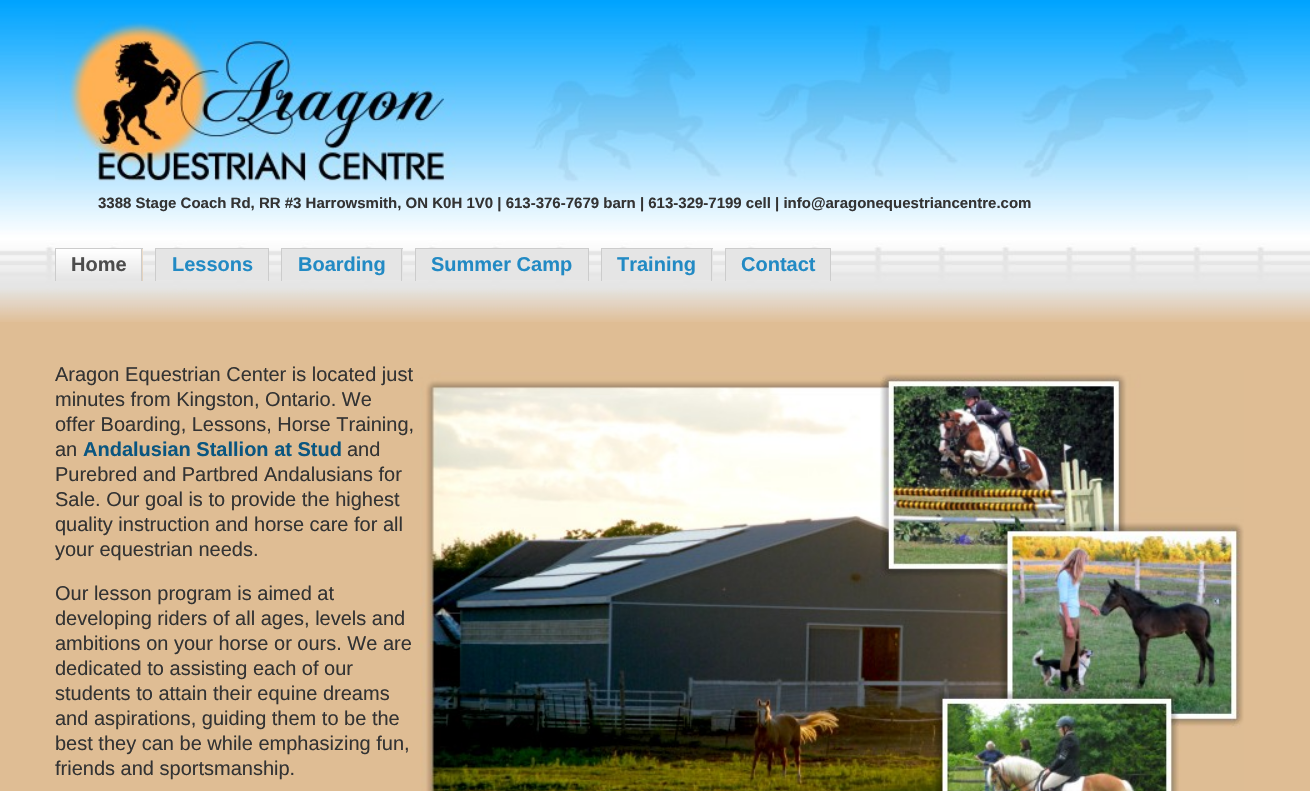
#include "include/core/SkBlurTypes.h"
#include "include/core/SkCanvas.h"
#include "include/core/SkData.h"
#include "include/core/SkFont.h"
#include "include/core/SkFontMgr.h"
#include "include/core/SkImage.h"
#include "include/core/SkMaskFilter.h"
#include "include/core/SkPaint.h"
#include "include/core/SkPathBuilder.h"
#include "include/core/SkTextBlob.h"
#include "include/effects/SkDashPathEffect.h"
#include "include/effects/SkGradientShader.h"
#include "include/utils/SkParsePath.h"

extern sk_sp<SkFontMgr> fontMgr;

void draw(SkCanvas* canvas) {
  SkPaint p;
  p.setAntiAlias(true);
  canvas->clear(SkColorSetRGB(223, 189, 148));
  canvas->drawImageRect(SkImages::DeferredFromEncodedData(SkData::MakeFromFileName("images/1.png")), SkRect::MakeLTRB(0, 0, 1310, 322), SkSamplingOptions());
  canvas->drawImageRect(SkImages::DeferredFromEncodedData(SkData::MakeFromFileName("images/2.png")), SkRect::MakeLTRB(55, 20, 1248, 182), SkSamplingOptions());
  p.setColor(SkColorSetRGB(223, 189, 148));
  canvas->drawRect(SkRect::MakeLTRB(142, 249, 143, 281), p);
  canvas->drawImageRect(SkImages::DeferredFromEncodedData(SkData::MakeFromFileName("images/3.png")), SkRect::MakeLTRB(56, 249, 143, 281), SkSamplingOptions());
  p.setColor(SkColorSetRGB(204, 204, 204));
  canvas->drawRect(SkRect::MakeLTRB(55, 248, 143, 249), p);
  canvas->drawRect(SkRect::MakeLTRB(141, 248, 142, 281), p);
  canvas->drawRect(SkRect::MakeLTRB(55, 248, 56, 281), p);
  p.setColor(SkColorSetRGB(229, 229, 229));
  canvas->drawRect(SkRect::MakeLTRB(156, 249, 268, 280), p);
  p.setColor(SkColorSetRGB(204, 204, 204));
  canvas->drawRect(SkRect::MakeLTRB(155, 248, 269, 249), p);
  canvas->drawRect(SkRect::MakeLTRB(268, 248, 269, 281), p);
  canvas->drawRect(SkRect::MakeLTRB(155, 248, 156, 281), p);
  p.setColor(SkColorSetRGB(229, 229, 229));
  canvas->drawRect(SkRect::MakeLTRB(282, 249, 403, 280), p);
  p.setColor(SkColorSetRGB(204, 204, 204));
  canvas->drawRect(SkRect::MakeLTRB(281, 248, 403, 249), p);
  canvas->drawRect(SkRect::MakeLTRB(401, 248, 402, 281), p);
  canvas->drawRect(SkRect::MakeLTRB(281, 248, 282, 281), p);
  p.setColor(SkColorSetRGB(229, 229, 229));
  canvas->drawRect(SkRect::MakeLTRB(416, 249, 588, 280), p);
  p.setColor(SkColorSetRGB(204, 204, 204));
  canvas->drawRect(SkRect::MakeLTRB(415, 248, 589, 249), p);
  canvas->drawRect(SkRect::MakeLTRB(588, 248, 589, 281), p);
  canvas->drawRect(SkRect::MakeLTRB(415, 248, 416, 281), p);
  p.setColor(SkColorSetRGB(229, 229, 229));
  canvas->drawRect(SkRect::MakeLTRB(602, 249, 713, 280), p);
  p.setColor(SkColorSetRGB(204, 204, 204));
  canvas->drawRect(SkRect::MakeLTRB(601, 248, 713, 249), p);
  canvas->drawRect(SkRect::MakeLTRB(711, 248, 712, 281), p);
  canvas->drawRect(SkRect::MakeLTRB(601, 248, 602, 281), p);
  p.setColor(SkColorSetRGB(229, 229, 229));
  canvas->drawRect(SkRect::MakeLTRB(726, 249, 830, 280), p);
  p.setColor(SkColorSetRGB(204, 204, 204));
  canvas->drawRect(SkRect::MakeLTRB(725, 248, 831, 249), p);
  canvas->drawRect(SkRect::MakeLTRB(830, 248, 831, 281), p);
  canvas->drawRect(SkRect::MakeLTRB(725, 248, 726, 281), p);
  canvas->drawImageRect(SkImages::DeferredFromEncodedData(SkData::MakeFromFileName("images/4.png")), SkRect::MakeLTRB(420, 370, 1244, 791), SkSamplingOptions());
  SkFont font1(fontMgr->matchFamilyStyle("Liberation Sans", SkFontStyle::Bold()), 15);
  font1.setSubpixel(true);
  p.setColor(SkColorSetRGB(51, 51, 51));
  canvas->drawString("3388 Stage Coach Rd, RR #3 Harrowsmith, ON K0H 1V0 | 613-376-7679 barn | 613-329-7199 cell | info@aragonequestriancentre.com", 98, 208, font1, p);
  SkFont font2(fontMgr->matchFamilyStyle("Liberation Sans", SkFontStyle::Bold()), 20);
  font2.setSubpixel(true);
  p.setColor(SkColorSetRGB(77, 77, 77));
  canvas->drawString("Home", 71, 271, font2, p);
  p.setColor(SkColorSetRGB(34, 138, 196));
  canvas->drawString("Lessons", 172, 271, font2, p);
  canvas->drawString("Boarding", 298, 271, font2, p);
  canvas->drawString("Summer Camp", 431, 271, font2, p);
  canvas->drawString("Training", 617, 271, font2, p);
  canvas->drawString("Contact", 741, 271, font2, p);
  SkFont font3(fontMgr->matchFamilyStyle("Liberation Sans", SkFontStyle::Normal()), 20);
  font3.setSubpixel(true);
  p.setColor(SkColorSetRGB(51, 51, 51));
  canvas->drawString("Aragon Equestrian Center is located just", 55, 381, font3, p);
  canvas->drawString("minutes from Kingston, Ontario. We", 55, 406, font3, p);
  canvas->drawString("offer Boarding, Lessons, Horse Training,", 55, 431, font3, p);
  canvas->drawString("an", 55, 456, font3, p);
  p.setColor(SkColorSetRGB(10, 86, 128));
  canvas->drawString("Andalusian Stallion at Stud", 83, 456, font2, p);
  p.setColor(SkColorSetRGB(51, 51, 51));
  canvas->drawString("and", 347, 456, font3, p);
  canvas->drawString("Purebred and Partbred Andalusians for", 55, 481, font3, p);
  canvas->drawString("Sale. Our goal is to provide the highest", 55, 506, font3, p);
  canvas->drawString("quality instruction and horse care for all", 55, 531, font3, p);
  canvas->drawString("your equestrian needs.", 55, 556, font3, p);
  canvas->drawString("Our lesson program is aimed at", 55, 600, font3, p);
  canvas->drawString("developing riders of all ages, levels and", 55, 625, font3, p);
  canvas->drawString("ambitions on your horse or ours. We are", 55, 650, font3, p);
  canvas->drawString("dedicated to assisting each of our", 55, 675, font3, p);
  canvas->drawString("students to attain their equine dreams", 55, 700, font3, p);
  canvas->drawString("and aspirations, guiding them to be the", 55, 725, font3, p);
  canvas->drawString("best they can be while emphasizing fun,", 55, 750, font3, p);
  canvas->drawString("friends and sportsmanship.", 55, 775, font3, p);
}
